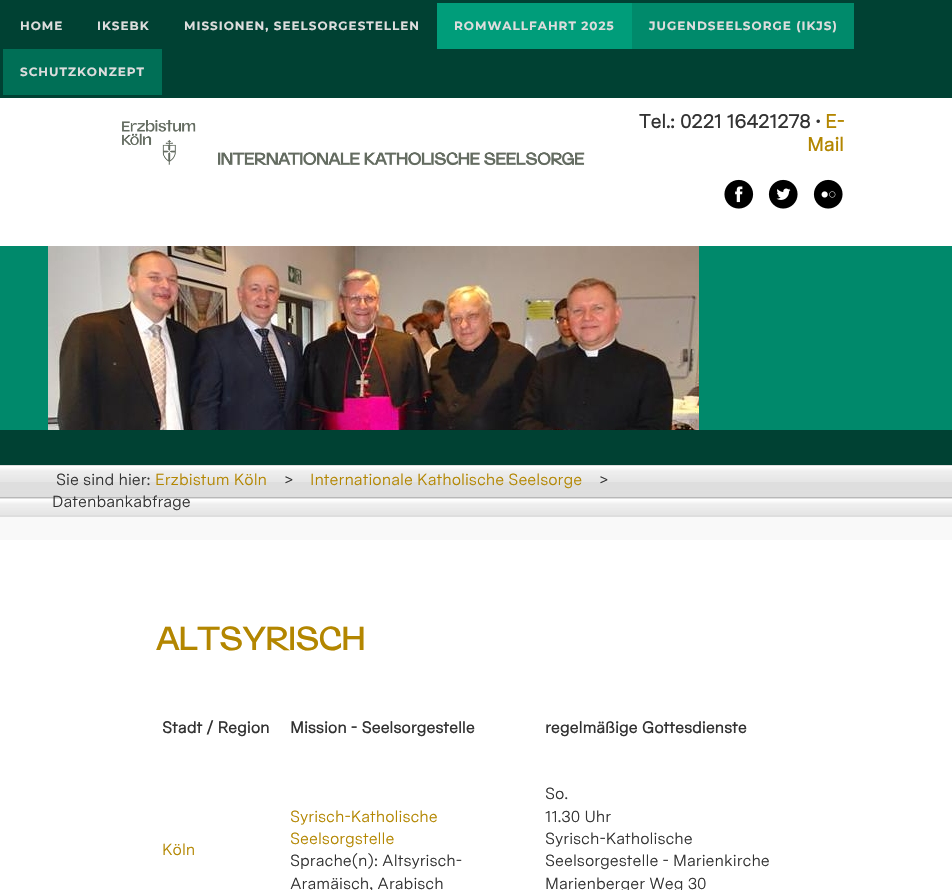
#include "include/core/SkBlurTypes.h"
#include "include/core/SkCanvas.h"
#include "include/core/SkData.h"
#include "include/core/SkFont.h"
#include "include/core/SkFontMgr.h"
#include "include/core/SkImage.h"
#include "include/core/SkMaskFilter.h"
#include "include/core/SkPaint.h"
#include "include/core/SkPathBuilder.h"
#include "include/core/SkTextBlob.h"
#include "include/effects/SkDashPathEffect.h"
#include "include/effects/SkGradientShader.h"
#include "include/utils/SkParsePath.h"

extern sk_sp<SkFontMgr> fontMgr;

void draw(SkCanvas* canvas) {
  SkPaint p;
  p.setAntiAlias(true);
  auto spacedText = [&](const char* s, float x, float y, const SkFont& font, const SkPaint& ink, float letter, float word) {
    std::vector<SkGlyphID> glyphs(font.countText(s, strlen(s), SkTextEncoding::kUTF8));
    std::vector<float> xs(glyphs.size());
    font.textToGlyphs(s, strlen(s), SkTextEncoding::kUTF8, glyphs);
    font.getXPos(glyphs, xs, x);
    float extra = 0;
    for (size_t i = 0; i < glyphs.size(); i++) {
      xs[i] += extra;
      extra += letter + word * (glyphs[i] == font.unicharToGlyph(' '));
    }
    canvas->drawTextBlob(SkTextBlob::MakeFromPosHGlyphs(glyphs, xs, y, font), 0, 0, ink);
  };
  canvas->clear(SK_ColorWHITE);
  p.setColor(SkColorSetRGB(0, 65, 51));
  canvas->drawRect(SkRect::MakeLTRB(0, 0, 952, 98), p);
  p.setColor(SkColorSetRGB(0, 157, 122));
  canvas->drawRect(SkRect::MakeLTRB(437, 3, 632, 49), p);
  p.setColor(SkColorSetRGB(0, 138, 107));
  canvas->drawRect(SkRect::MakeLTRB(632, 3, 854, 49), p);
  p.setColor(SkColorSetRGB(0, 111, 86));
  canvas->drawRect(SkRect::MakeLTRB(3, 49, 162, 95), p);
  canvas->drawImageRect(SkImages::DeferredFromEncodedData(SkData::MakeFromFileName("images/1.png")), SkRect::MakeLTRB(122, 120, 585, 166), SkSamplingOptions());
  canvas->drawImageRect(SkImages::DeferredFromEncodedData(SkData::MakeFromFileName("images/2.png")), SkRect::MakeLTRB(724, 179, 754, 209), SkSamplingOptions());
  canvas->drawImageRect(SkImages::DeferredFromEncodedData(SkData::MakeFromFileName("images/3.png")), SkRect::MakeLTRB(768, 179, 798, 209), SkSamplingOptions());
  canvas->drawImageRect(SkImages::DeferredFromEncodedData(SkData::MakeFromFileName("images/4.png")), SkRect::MakeLTRB(813, 179, 843, 209), SkSamplingOptions());
  p.setColor(SkColorSetRGB(0, 137, 107));
  canvas->drawRect(SkRect::MakeLTRB(0, 246, 952, 430), p);
  canvas->drawImageRect(SkImages::DeferredFromEncodedData(SkData::MakeFromFileName("images/5.png")), SkRect::MakeLTRB(48, 246, 699, 430), SkSamplingOptions());
  p.setColor(SkColorSetRGB(0, 65, 51));
  canvas->drawRect(SkRect::MakeLTRB(0, 430, 952, 465), p);
  canvas->drawImageRect(SkImages::DeferredFromEncodedData(SkData::MakeFromFileName("images/6.png")), SkRect::MakeLTRB(0, 465, 952, 517), SkSamplingOptions());
  p.setColor(SkColorSetRGB(249, 249, 249));
  canvas->drawRect(SkRect::MakeLTRB(0, 517, 952, 540), p);
  SkFont font1(fontMgr->matchFamilyStyle("Montserrat", SkFontStyle::Bold()), 12);
  font1.setSubpixel(true);
  p.setColor(SkColorSetRGB(221, 221, 221));
  spacedText("HOME", 20, 30, font1, p, 1, 0);
  spacedText("IKSEBK", 97, 30, font1, p, 1, 0);
  spacedText("MISSIONEN, SEELSORGESTELLEN", 184, 30, font1, p, 1, 0);
  spacedText("ROMWALLFAHRT 2025", 454, 30, font1, p, 1, 0);
  spacedText("JUGENDSEELSORGE (IKJS)", 649, 30, font1, p, 1, 0);
  spacedText("SCHUTZKONZEPT", 20, 76, font1, p, 1, 0);
  SkFont font2(fontMgr->matchFamilyStyle("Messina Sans", SkFontStyle::Bold()), 19.25f);
  font2.setSubpixel(true);
  p.setColor(SkColorSetRGB(51, 51, 51));
  canvas->drawString("Tel.: 0221 16421278 •", 639, 128, font2, p);
  p.setColor(SkColorSetRGB(179, 134, 0));
  canvas->drawString("E-", 825, 128, font2, p);
  canvas->drawString("Mail", 807, 151, font2, p);
  SkFont font3(fontMgr->matchFamilyStyle("Messina Sans", SkFontStyle::Normal()), 16);
  font3.setSubpixel(true);
  p.setColor(SkColorSetRGB(51, 51, 51));
  canvas->drawString("Sie sind hier:", 56, 485, font3, p);
  p.setColor(SkColorSetRGB(179, 134, 0));
  canvas->drawString("Erzbistum Köln", 155, 485, font3, p);
  p.setColor(SkColorSetRGB(51, 51, 51));
  canvas->drawString(">", 284, 485, font3, p);
  p.setColor(SkColorSetRGB(179, 134, 0));
  canvas->drawString("Internationale Katholische Seelsorge", 310, 485, font3, p);
  p.setColor(SkColorSetRGB(51, 51, 51));
  canvas->drawString(">", 599, 485, font3, p);
  canvas->drawString("Datenbankabfrage", 52, 507, font3, p);
  SkFont font4(fontMgr->matchFamilyStyle("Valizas", SkFontStyle::Bold()), 32);
  font4.setSubpixel(true);
  p.setColor(SkColorSetRGB(179, 134, 0));
  canvas->drawString("ALTSYRISCH", 156, 650, font4, p);
  SkFont font5(fontMgr->matchFamilyStyle("Messina Sans", SkFontStyle::Bold()), 16);
  font5.setSubpixel(true);
  p.setColor(SkColorSetRGB(51, 51, 51));
  canvas->drawString("Stadt / Region", 162, 733, font5, p);
  canvas->drawString("Mission - Seelsorgestelle", 290, 733, font5, p);
  canvas->drawString("regelmäßige Gottesdienste", 545, 733, font5, p);
  p.setColor(SkColorSetRGB(179, 134, 0));
  canvas->drawString("Köln", 162, 855, font3, p);
  canvas->drawString("Syrisch-Katholische", 290, 822, font3, p);
  canvas->drawString("Seelsorgstelle", 290, 844, font3, p);
  p.setColor(SkColorSetRGB(51, 51, 51));
  canvas->drawString("Sprache(n): Altsyrisch-", 290, 866, font3, p);
  canvas->drawString("Aramäisch, Arabisch", 290, 889, font3, p);
  canvas->drawString("So.", 545, 799, font3, p);
  canvas->drawString("11.30 Uhr", 545, 822, font3, p);
  canvas->drawString("Syrisch-Katholische", 545, 844, font3, p);
  canvas->drawString("Seelsorgestelle - Marienkirche", 545, 866, font3, p);
  canvas->drawString("Marienberger Weg 30", 545, 889, font3, p);
}
